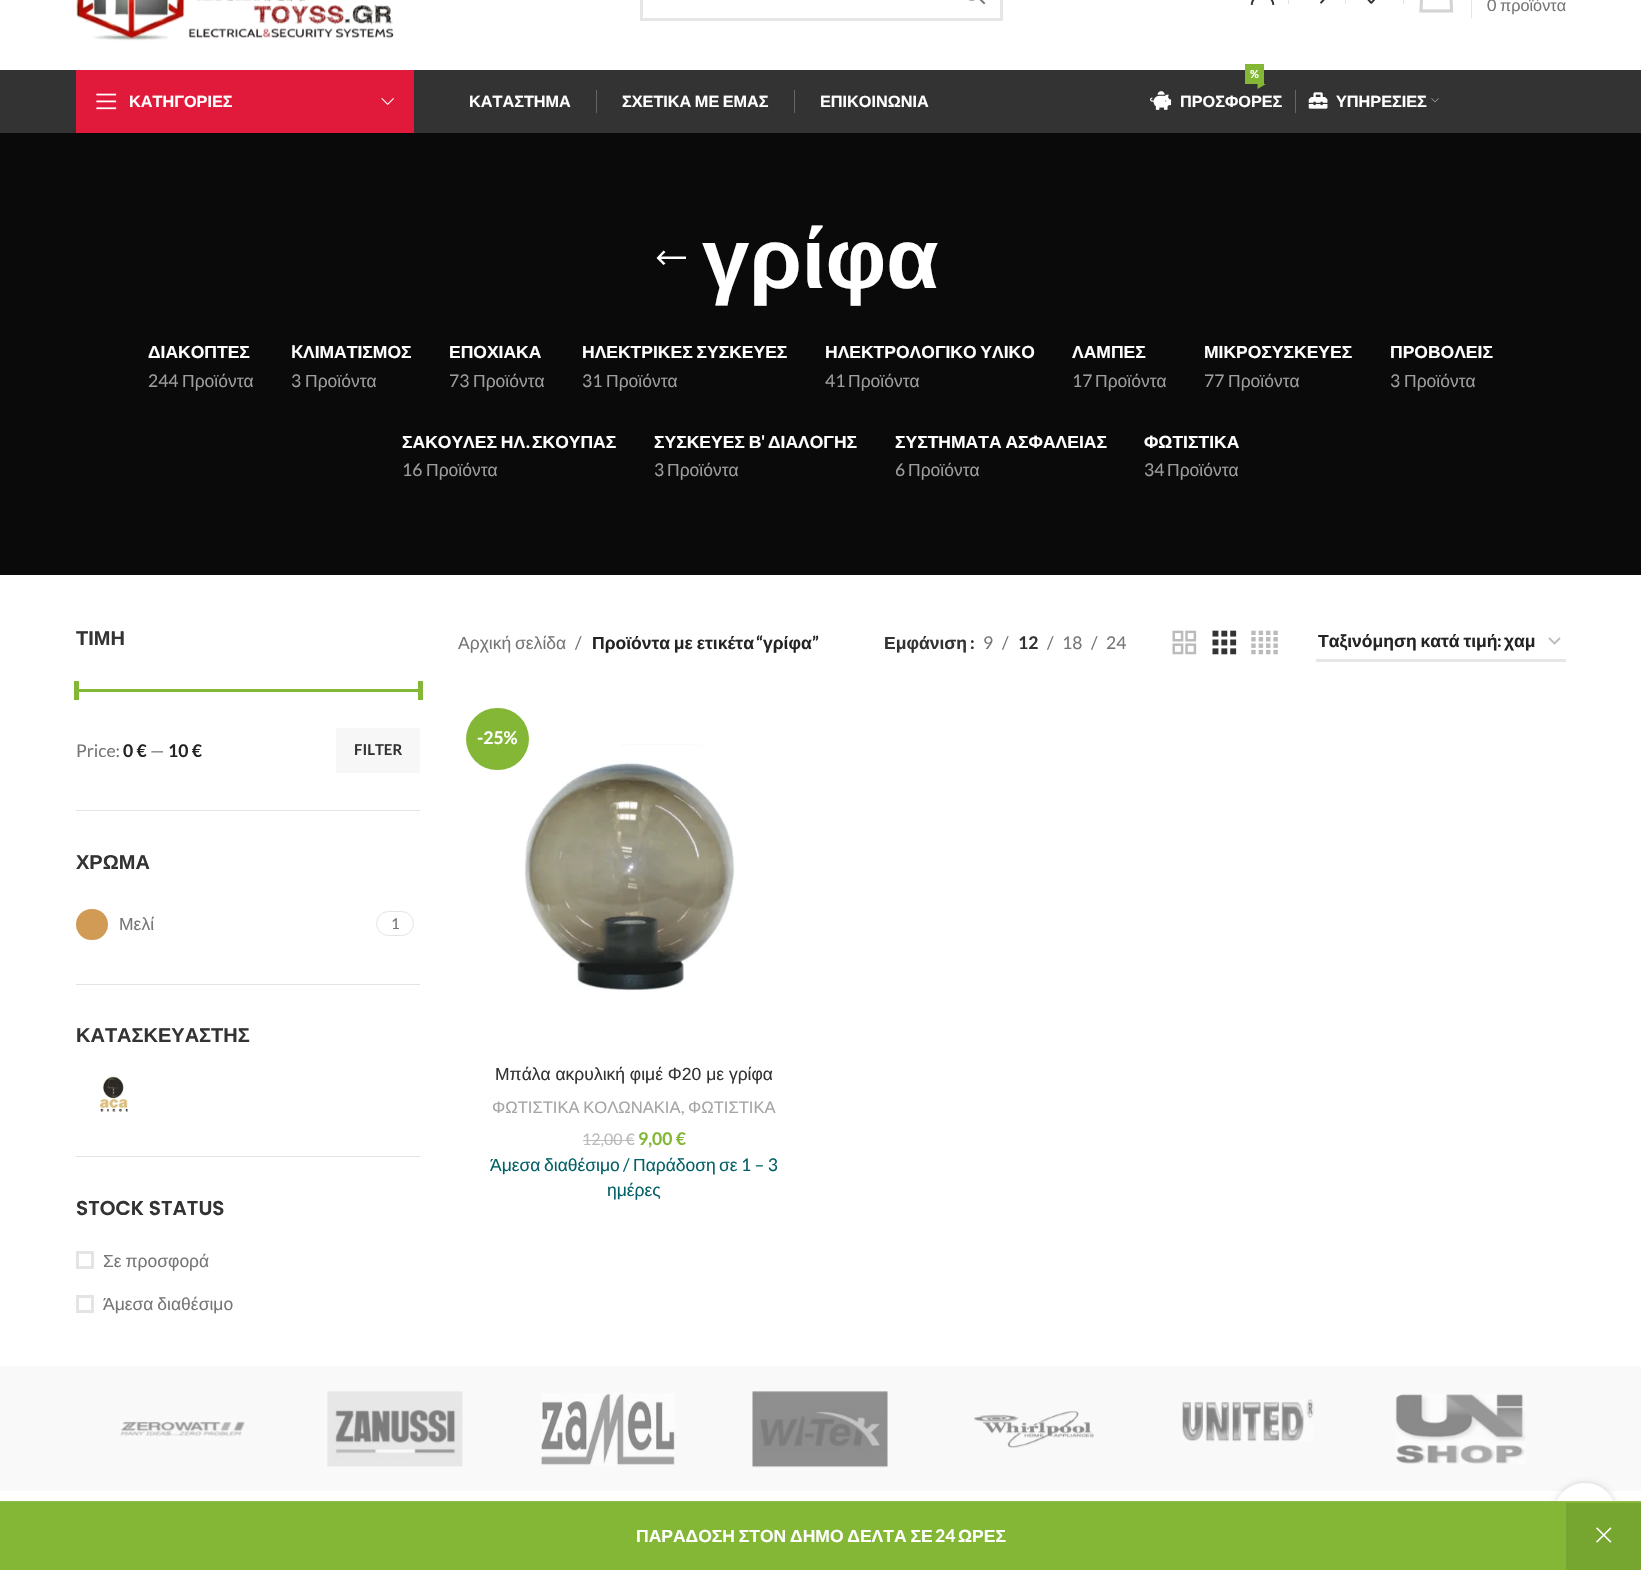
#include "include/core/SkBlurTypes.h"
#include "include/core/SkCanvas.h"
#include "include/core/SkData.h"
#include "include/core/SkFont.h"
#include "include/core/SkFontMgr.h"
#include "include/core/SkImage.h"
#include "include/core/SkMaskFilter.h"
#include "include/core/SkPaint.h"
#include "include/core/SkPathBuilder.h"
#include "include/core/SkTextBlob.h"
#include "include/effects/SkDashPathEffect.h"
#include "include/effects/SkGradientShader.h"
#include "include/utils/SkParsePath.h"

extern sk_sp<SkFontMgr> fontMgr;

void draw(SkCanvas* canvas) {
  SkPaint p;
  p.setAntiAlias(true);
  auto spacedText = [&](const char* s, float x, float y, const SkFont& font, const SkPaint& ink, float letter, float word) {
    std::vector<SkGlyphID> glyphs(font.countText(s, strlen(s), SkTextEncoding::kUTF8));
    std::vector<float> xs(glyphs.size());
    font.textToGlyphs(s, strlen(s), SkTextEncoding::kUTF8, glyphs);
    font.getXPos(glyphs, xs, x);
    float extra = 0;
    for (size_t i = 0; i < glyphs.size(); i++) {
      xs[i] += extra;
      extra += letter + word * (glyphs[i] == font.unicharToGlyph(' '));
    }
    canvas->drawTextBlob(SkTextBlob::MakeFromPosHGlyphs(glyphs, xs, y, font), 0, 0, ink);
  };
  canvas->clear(SK_ColorWHITE);
  canvas->drawImageRect(SkImages::DeferredFromEncodedData(SkData::MakeFromFileName("images/1.png")), SkRect::MakeLTRB(76, 0, 394, 41), SkSamplingOptions());
  p.setStyle(SkPaint::kStroke_Style);
  p.setStrokeWidth(3);
  p.setColor(SkColorSetRGB(230, 230, 230));
  canvas->drawRect(SkRect::MakeLTRB(641.5f, -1.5f, 1001.5f, 19.5f), p);
  canvas->drawImageRect(SkImages::DeferredFromEncodedData(SkData::MakeFromFileName("images/2.png")), SkRect::MakeLTRB(968, 0, 986, 5), SkSamplingOptions());
  canvas->drawImageRect(SkImages::DeferredFromEncodedData(SkData::MakeFromFileName("images/3.png")), SkRect::MakeLTRB(1250, 0, 1275, 5), SkSamplingOptions());
  p.setStyle(SkPaint::kFill_Style);
  p.setColor(SkColorSetRGB(228, 228, 228));
  canvas->drawRect(SkRect::MakeLTRB(1288, 0, 1289, 4), p);
  canvas->drawImageRect(SkImages::DeferredFromEncodedData(SkData::MakeFromFileName("images/4.png")), SkRect::MakeLTRB(1319, 0, 1325, 4), SkSamplingOptions());
  canvas->drawRect(SkRect::MakeLTRB(1345, 0, 1346, 4), p);
  canvas->drawImageRect(SkImages::DeferredFromEncodedData(SkData::MakeFromFileName("images/5.png")), SkRect::MakeLTRB(1367, 0, 1376, 4), SkSamplingOptions());
  canvas->drawRect(SkRect::MakeLTRB(1403, 0, 1404, 4), p);
  canvas->drawImageRect(SkImages::DeferredFromEncodedData(SkData::MakeFromFileName("images/6.png")), SkRect::MakeLTRB(1419, 0, 1454, 13), SkSamplingOptions());
  p.setColor(SkColorSetRGB(230, 230, 230));
  canvas->drawRect(SkRect::MakeLTRB(1471, 0, 1472, 18), p);
  p.setColor(SkColorSetRGB(51, 51, 51));
  canvas->drawRect(SkRect::MakeLTRB(0, 70, 1641, 133), p);
  p.setColor(SkColorSetRGB(225, 25, 59));
  canvas->drawRect(SkRect::MakeLTRB(76, 70, 414, 133), p);
  canvas->drawImageRect(SkImages::DeferredFromEncodedData(SkData::MakeFromFileName("images/7.png")), SkRect::MakeLTRB(96, 93, 117, 110), SkSamplingOptions());
  canvas->drawImageRect(SkImages::DeferredFromEncodedData(SkData::MakeFromFileName("images/8.png")), SkRect::MakeLTRB(381, 98, 394, 105), SkSamplingOptions());
  p.setColor(SkColorSetRGB(102, 102, 102));
  canvas->drawRect(SkRect::MakeLTRB(596, 90, 597, 113), p);
  canvas->drawRect(SkRect::MakeLTRB(794, 90, 795, 113), p);
  p.setColor(SkColorSetRGB(131, 183, 53));
  canvas->drawRect(SkRect::MakeLTRB(1245, 64, 1264, 84), p);
  canvas->drawPath(SkPathBuilder().moveTo(1257.5f, 84).lineTo(1266, 84).lineTo(1257.5f, 89).close().detach(), p);
  canvas->drawImageRect(SkImages::DeferredFromEncodedData(SkData::MakeFromFileName("images/9.png")), SkRect::MakeLTRB(1150, 91, 1172, 110), SkSamplingOptions());
  p.setColor(SkColorSetRGB(102, 102, 102));
  canvas->drawRect(SkRect::MakeLTRB(1295, 90, 1296, 113), p);
  canvas->drawImageRect(SkImages::DeferredFromEncodedData(SkData::MakeFromFileName("images/10.png")), SkRect::MakeLTRB(1308, 92, 1328, 109), SkSamplingOptions());
  canvas->drawImageRect(SkImages::DeferredFromEncodedData(SkData::MakeFromFileName("images/11.png")), SkRect::MakeLTRB(1431, 98, 1439, 103), SkSamplingOptions());
  p.setColor(SkColorSetRGB(10, 10, 10));
  canvas->drawRect(SkRect::MakeLTRB(0, 133, 1641, 575), p);
  p.setColor(SK_ColorWHITE);
  canvas->drawPath(SkPathBuilder().moveTo(665.5f, 263.5f).lineTo(661, 259).lineTo(686, 259).lineTo(686, 256.5f).lineTo(661, 256.5f).lineTo(665.5f, 252).lineTo(663.5f, 250.5f).lineTo(656.5f, 258).lineTo(663.5f, 265).close().detach(), p);
  p.setColor(SkColorSetRGB(228, 228, 228));
  canvas->drawRect(SkRect::MakeLTRB(76, 810, 420, 811), p);
  p.setColor(SkColorSetRGB(131, 183, 53));
  canvas->drawRect(SkRect::MakeLTRB(76, 689, 420, 692), p);
  canvas->drawRect(SkRect::MakeLTRB(74, 681, 79, 700), p);
  canvas->drawRect(SkRect::MakeLTRB(418, 681, 423, 700), p);
  p.setColor(SkColorSetRGB(247, 247, 247));
  canvas->drawRect(SkRect::MakeLTRB(336, 728, 420, 773), p);
  p.setColor(SkColorSetRGB(228, 228, 228));
  canvas->drawRect(SkRect::MakeLTRB(76, 984, 420, 985), p);
  p.setColor(SkColorSetRGB(209, 155, 86));
  canvas->drawRoundRect(SkRect::MakeLTRB(76, 909, 108, 940), 15.5f, 15.5f, p);
  p.setStyle(SkPaint::kStroke_Style);
  p.setStrokeWidth(1);
  p.setColor(SkColorSetRGB(228, 228, 228));
  canvas->drawRoundRect(SkRect::MakeLTRB(376.5f, 911.5f, 413.5f, 935.5f), 12, 12, p);
  p.setStyle(SkPaint::kFill_Style);
  canvas->drawRect(SkRect::MakeLTRB(76, 1156, 420, 1157), p);
  canvas->drawImageRect(SkImages::DeferredFromEncodedData(SkData::MakeFromFileName("images/12.png")), SkRect::MakeLTRB(99, 1076, 128, 1112), SkSamplingOptions());
  p.setStyle(SkPaint::kStroke_Style);
  p.setStrokeWidth(3);
  canvas->drawRect(SkRect::MakeLTRB(77.5f, 1252.5f, 92.5f, 1267.5f), p);
  canvas->drawRect(SkRect::MakeLTRB(77.5f, 1296.5f, 92.5f, 1311.5f), p);
  canvas->drawImageRect(SkImages::DeferredFromEncodedData(SkData::MakeFromFileName("images/13.png")), SkRect::MakeLTRB(1172, 630, 1197, 655), SkSamplingOptions());
  canvas->drawImageRect(SkImages::DeferredFromEncodedData(SkData::MakeFromFileName("images/14.png")), SkRect::MakeLTRB(1212, 630, 1237, 655), SkSamplingOptions());
  canvas->drawImageRect(SkImages::DeferredFromEncodedData(SkData::MakeFromFileName("images/15.png")), SkRect::MakeLTRB(1251, 630, 1278, 655), SkSamplingOptions());
  p.setStrokeWidth(1.8f);
  p.setColor(SkColorSetRGB(187, 187, 187));
  canvas->drawPath(SkPathBuilder().moveTo(1549, 638).lineTo(1554.5f, 643.5f).lineTo(1560, 638).detach(), p);
  p.setStyle(SkPaint::kFill_Style);
  p.setColor(SkColorSetRGB(230, 230, 230));
  canvas->drawRect(SkRect::MakeLTRB(1316, 659, 1566, 662), p);
  canvas->drawImageRect(SkImages::DeferredFromEncodedData(SkData::MakeFromFileName("images/16.png")), SkRect::MakeLTRB(524, 744, 735, 991), SkSamplingOptions());
  p.setColor(SkColorSetRGB(131, 183, 53));
  canvas->drawRoundRect(SkRect::MakeLTRB(466, 708, 529, 770), 31, 31, p);
  p.setColor(SkColorSetRGB(187, 187, 187));
  canvas->drawRect(SkRect::MakeLTRB(583, 1140, 634, 1141), p);
  p.setColor(SkColorSetRGB(249, 249, 249));
  canvas->drawRect(SkRect::MakeLTRB(0, 1366, 1641, 1491), p);
  canvas->drawImageRect(SkImages::DeferredFromEncodedData(SkData::MakeFromFileName("images/17.png")), SkRect::MakeLTRB(120, 1421, 245, 1437), SkSamplingOptions());
  canvas->drawImageRect(SkImages::DeferredFromEncodedData(SkData::MakeFromFileName("images/18.png")), SkRect::MakeLTRB(327, 1391, 463, 1467), SkSamplingOptions());
  canvas->drawImageRect(SkImages::DeferredFromEncodedData(SkData::MakeFromFileName("images/19.png")), SkRect::MakeLTRB(541, 1393, 675, 1466), SkSamplingOptions());
  canvas->drawImageRect(SkImages::DeferredFromEncodedData(SkData::MakeFromFileName("images/20.png")), SkRect::MakeLTRB(752, 1391, 888, 1468), SkSamplingOptions());
  canvas->drawImageRect(SkImages::DeferredFromEncodedData(SkData::MakeFromFileName("images/21.png")), SkRect::MakeLTRB(974, 1411, 1094, 1448), SkSamplingOptions());
  canvas->drawImageRect(SkImages::DeferredFromEncodedData(SkData::MakeFromFileName("images/22.png")), SkRect::MakeLTRB(1182, 1399, 1314, 1442), SkSamplingOptions());
  canvas->drawImageRect(SkImages::DeferredFromEncodedData(SkData::MakeFromFileName("images/23.png")), SkRect::MakeLTRB(1395, 1394, 1526, 1464), SkSamplingOptions());
  canvas->save();
  canvas->clipPath(SkPathBuilder(SkPathFillType::kEvenOdd).moveTo(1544, 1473).lineTo(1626, 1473).lineTo(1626, 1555).lineTo(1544, 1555).close().moveTo(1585, 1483).cubicTo(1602, 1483, 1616, 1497, 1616, 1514).cubicTo(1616, 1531, 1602, 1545, 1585, 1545).cubicTo(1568, 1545, 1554, 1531, 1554, 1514).cubicTo(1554, 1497, 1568, 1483, 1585, 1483).close().detach(), true);
  p.setColor(SkColorSetARGB(43, 0, 0, 0));
  p.setMaskFilter(SkMaskFilter::MakeBlur(kNormal_SkBlurStyle, 3));
  canvas->drawRoundRect(SkRect::MakeLTRB(1554, 1483, 1616, 1545), 31, 31, p);
  p.setMaskFilter(nullptr);
  canvas->restore();
  p.setColor(SkColorSetARGB(230, 255, 255, 255));
  canvas->drawCircle(1585, 1514, 31, p);
  p.setColor(SkColorSetRGB(131, 183, 53));
  canvas->drawRect(SkRect::MakeLTRB(0, 1502, 1641, 1570), p);
  p.setColor(SkColorSetRGB(143, 190, 73));
  canvas->drawRect(SkRect::MakeLTRB(0, 1501, 1641, 1502), p);
  p.setColor(SkColorSetRGB(118, 165, 48));
  canvas->drawRect(SkRect::MakeLTRB(1566, 1503, 1641, 1570), p);
  canvas->drawImageRect(SkImages::DeferredFromEncodedData(SkData::MakeFromFileName("images/24.png")), SkRect::MakeLTRB(1596, 1527, 1612, 1543), SkSamplingOptions());
  SkFont font1(fontMgr->matchFamilyStyle("Lato", SkFontStyle::Normal()), 16.25f);
  font1.setSubpixel(true);
  p.setColor(SkColorSetRGB(118, 118, 118));
  canvas->drawString("0", 1487, 11, font1, p);
  SkFont font2(fontMgr->matchFamilyStyle("Liberation Sans", SkFontStyle::Normal()), 16.25f);
  font2.setSubpixel(true);
  canvas->drawString("προϊόντα", 1500, 11, font2, p);
  SkFont font3(fontMgr->matchFamilyStyle("Liberation Sans", SkFontStyle::Bold()), 16.25f);
  font3.setSubpixel(true);
  p.setColor(SK_ColorWHITE);
  canvas->drawString("ΚΑΤΗΓΟΡΙΕΣ", 129, 107, font3, p);
  canvas->drawString("ΚΑΤΑΣΤΗΜΑ", 469, 107, font3, p);
  spacedText("ΣΧΕΤΙΚΑ ΜΕ ΕΜΑΣ", 622, 107, font3, p, 0, -1);
  canvas->drawString("ΕΠΙΚΟΙΝΩΝΙΑ", 820, 107, font3, p);
  SkFont font4(fontMgr->matchFamilyStyle("Lato", SkFontStyle::Bold()), 11);
  font4.setSubpixel(true);
  canvas->drawString("%", 1250, 78, font4, p);
  canvas->drawString("ΠΡΟΣΦΟΡΕΣ", 1180, 107, font3, p);
  canvas->drawString("ΥΠΗΡΕΣΙΕΣ", 1336, 107, font3, p);
  SkFont font5(fontMgr->matchFamilyStyle("Liberation Sans", SkFontStyle::Bold()), 85);
  font5.setSubpixel(true);
  canvas->drawString("γρίφα", 702, 288, font5, p);
  SkFont font6(fontMgr->matchFamilyStyle("Liberation Sans", SkFontStyle::Bold()), 17.5f);
  font6.setSubpixel(true);
  canvas->drawString("ΔΙΑΚΟΠΤΕΣ", 148, 358, font6, p);
  SkFont font7(fontMgr->matchFamilyStyle("Lato", SkFontStyle::Normal()), 17.5f);
  font7.setSubpixel(true);
  p.setColor(SkColorSetRGB(157, 157, 157));
  canvas->drawString("244", 148, 387, font7, p);
  SkFont font8(fontMgr->matchFamilyStyle("Liberation Sans", SkFontStyle::Normal()), 17.5f);
  font8.setSubpixel(true);
  canvas->drawString("Προϊόντα", 182, 387, font8, p);
  SkFont font9(fontMgr->matchFamilyStyle("Lato", SkFontStyle::Bold()), 17.5f);
  font9.setSubpixel(true);
  p.setColor(SK_ColorWHITE);
  canvas->drawString("K", 291, 358, font9, p);
  canvas->drawString("ΛΙΜΑΤΙΣΜΟΣ", 303, 358, font6, p);
  p.setColor(SkColorSetRGB(157, 157, 157));
  canvas->drawString("3", 291, 387, font7, p);
  canvas->drawString("Προϊόντα", 305, 387, font8, p);
  p.setColor(SK_ColorWHITE);
  canvas->drawString("ΕΠΟΧΙΑΚΑ", 449, 358, font6, p);
  p.setColor(SkColorSetRGB(157, 157, 157));
  canvas->drawString("73", 449, 387, font7, p);
  canvas->drawString("Προϊόντα", 473, 387, font8, p);
  p.setColor(SK_ColorWHITE);
  spacedText("ΗΛΕΚΤΡΙΚΕΣ ΣΥΣΚΕΥΕΣ", 582, 358, font6, p, 0, -1);
  p.setColor(SkColorSetRGB(157, 157, 157));
  canvas->drawString("31", 582, 387, font7, p);
  canvas->drawString("Προϊόντα", 606, 387, font8, p);
  p.setColor(SK_ColorWHITE);
  spacedText("ΗΛΕΚΤΡΟΛΟΓΙΚΟ ΥΛΙΚΟ", 825, 358, font6, p, 0, -1);
  p.setColor(SkColorSetRGB(157, 157, 157));
  canvas->drawString("41", 825, 387, font7, p);
  canvas->drawString("Προϊόντα", 848, 387, font8, p);
  p.setColor(SK_ColorWHITE);
  canvas->drawString("ΛΑΜΠΕΣ", 1072, 358, font6, p);
  p.setColor(SkColorSetRGB(157, 157, 157));
  canvas->drawString("17", 1072, 387, font7, p);
  canvas->drawString("Προϊόντα", 1095, 387, font8, p);
  p.setColor(SK_ColorWHITE);
  canvas->drawString("ΜΙΚΡΟΣΥΣΚΕΥΕΣ", 1204, 358, font6, p);
  p.setColor(SkColorSetRGB(157, 157, 157));
  canvas->drawString("77", 1204, 387, font7, p);
  canvas->drawString("Προϊόντα", 1228, 387, font8, p);
  p.setColor(SK_ColorWHITE);
  canvas->drawString("ΠΡΟΒΟΛΕΙΣ", 1390, 358, font6, p);
  p.setColor(SkColorSetRGB(157, 157, 157));
  canvas->drawString("3", 1390, 387, font7, p);
  canvas->drawString("Προϊόντα", 1404, 387, font8, p);
  p.setColor(SK_ColorWHITE);
  spacedText("ΣΑΚΟΥΛΕΣ ΗΛ", 402, 448, font6, p, 0, -1);
  canvas->drawString(".", 526, 448, font9, p);
  canvas->drawString("ΣΚΟΥΠΑΣ", 532, 448, font6, p);
  p.setColor(SkColorSetRGB(157, 157, 157));
  canvas->drawString("16", 402, 476, font7, p);
  canvas->drawString("Προϊόντα", 426, 476, font8, p);
  p.setColor(SK_ColorWHITE);
  spacedText("ΣΥΣΚΕΥΕΣ Β", 654, 448, font6, p, 0, -1);
  canvas->drawString("'", 761, 448, font9, p);
  canvas->drawString("ΔΙΑΛΟΓΗΣ", 768, 448, font6, p);
  p.setColor(SkColorSetRGB(157, 157, 157));
  canvas->drawString("3", 654, 476, font7, p);
  canvas->drawString("Προϊόντα", 667, 476, font8, p);
  p.setColor(SK_ColorWHITE);
  spacedText("ΣΥΣΤΗΜΑΤΑ ΑΣΦΑΛΕΙΑΣ", 895, 448, font6, p, 0, -1);
  p.setColor(SkColorSetRGB(157, 157, 157));
  canvas->drawString("6", 895, 476, font7, p);
  canvas->drawString("Προϊόντα", 908, 476, font8, p);
  p.setColor(SK_ColorWHITE);
  canvas->drawString("ΦΩΤΙΣΤΙΚΑ", 1144, 448, font6, p);
  p.setColor(SkColorSetRGB(157, 157, 157));
  canvas->drawString("34", 1144, 476, font7, p);
  canvas->drawString("Προϊόντα", 1167, 476, font8, p);
  SkFont font10(fontMgr->matchFamilyStyle("Liberation Sans", SkFontStyle::Bold()), 20);
  font10.setSubpixel(true);
  p.setColor(SkColorSetRGB(51, 51, 51));
  canvas->drawString("ΤΙΜΗ", 76, 645, font10, p);
  p.setColor(SkColorSetRGB(118, 118, 118));
  canvas->drawString("Price:", 76, 757, font7, p);
  p.setColor(SkColorSetRGB(36, 36, 36));
  canvas->drawString("0 €", 123, 757, font9, p);
  p.setColor(SkColorSetRGB(118, 118, 118));
  canvas->drawString("—", 150, 757, font7, p);
  p.setColor(SkColorSetRGB(36, 36, 36));
  canvas->drawString("10 €", 168, 757, font9, p);
  SkFont font11(fontMgr->matchFamilyStyle("Lato", SkFontStyle::Bold()), 15);
  font11.setSubpixel(true);
  p.setColor(SkColorSetRGB(51, 51, 51));
  canvas->drawString("FILTER", 354, 755, font11, p);
  canvas->drawString("ΧΡΩΜΑ", 76, 869, font10, p);
  p.setColor(SkColorSetRGB(118, 118, 118));
  canvas->drawString("Μελί", 119, 930, font8, p);
  SkFont font12(fontMgr->matchFamilyStyle("Lato", SkFontStyle::Normal()), 15);
  font12.setSubpixel(true);
  canvas->drawString("1", 391, 929, font12, p);
  p.setColor(SkColorSetRGB(51, 51, 51));
  canvas->drawString("ΚΑΤΑΣΚΕΥΑΣΤΗΣ", 76, 1042, font10, p);
  SkFont font13(fontMgr->matchFamilyStyle("Poppins", SkFontStyle(600, SkFontStyle::kNormal_Width, SkFontStyle::kUpright_Slant)), 20);
  font13.setSubpixel(true);
  canvas->drawString("STOCK STATUS", 76, 1215, font13, p);
  p.setColor(SkColorSetRGB(118, 118, 118));
  spacedText("Σε προσφορά", 103, 1267, font8, p, 0, -1);
  spacedText("Άμεσα διαθέσιμο", 103, 1310, font8, p, 0, -1);
  spacedText("Αρχική σελίδα", 458, 649, font8, p, 0, -1);
  canvas->drawString("/", 575, 649, font7, p);
  p.setColor(SkColorSetRGB(36, 36, 36));
  spacedText("Προϊόντα με ετικέτα", 592, 649, font6, p, 0, -1);
  canvas->drawString("“", 756, 649, font9, p);
  canvas->drawString("γρίφα", 763, 649, font6, p);
  canvas->drawString("”", 812, 649, font9, p);
  p.setColor(SkColorSetRGB(51, 51, 51));
  canvas->drawString("Εμφάνιση", 884, 649, font6, p);
  canvas->drawString(":", 970, 649, font9, p);
  p.setColor(SkColorSetRGB(118, 118, 118));
  canvas->drawString("9", 983, 649, font7, p);
  canvas->drawString("/", 1002, 649, font7, p);
  p.setColor(SkColorSetRGB(51, 51, 51));
  canvas->drawString("12", 1018, 649, font9, p);
  p.setColor(SkColorSetRGB(118, 118, 118));
  canvas->drawString("/", 1047, 649, font7, p);
  canvas->drawString("18", 1062, 649, font7, p);
  canvas->drawString("/", 1091, 649, font7, p);
  canvas->drawString("24", 1106, 649, font7, p);
  p.setColor(SkColorSetRGB(36, 36, 36));
  spacedText("Ταξινόμηση κατά τιμή", 1318, 647, font6, p, 0, -1);
  canvas->drawString(":", 1497, 647, font9, p);
  spacedText("χαμ", 1504, 647, font6, p, 0, -1);
  p.setColor(SK_ColorWHITE);
  canvas->drawString("-25%", 477, 744, font9, p);
  p.setColor(SkColorSetRGB(51, 51, 51));
  canvas->drawString("Μπάλα ακρυλική φιμέ Φ20 με γρίφα", 495, 1080, font8, p);
  SkFont font14(fontMgr->matchFamilyStyle("Liberation Sans", SkFontStyle::Normal()), 16.6f);
  font14.setSubpixel(true);
  p.setColor(SkColorSetRGB(165, 165, 165));
  spacedText("ΦΩΤΙΣΤΙΚΑ ΚΟΛΩΝΑΚΙΑ", 492, 1113, font14, p, 0, -1);
  SkFont font15(fontMgr->matchFamilyStyle("Lato", SkFontStyle::Normal()), 16.6f);
  font15.setSubpixel(true);
  canvas->drawString(",", 681, 1113, font15, p);
  canvas->drawString("ΦΩΤΙΣΤΙΚΑ", 688, 1113, font14, p);
  SkFont font16(fontMgr->matchFamilyStyle("Lato", SkFontStyle::Normal()), 16);
  font16.setSubpixel(true);
  p.setColor(SkColorSetRGB(187, 187, 187));
  canvas->drawString("12,00 €", 582, 1145, font16, p);
  p.setColor(SkColorSetRGB(131, 183, 53));
  canvas->drawString("9,00 €", 638, 1145, font9, p);
  p.setColor(SkColorSetRGB(4, 97, 103));
  canvas->drawString("Άμεσα", 490, 1171, font8, p);
  canvas->drawString("διαθέσιμο", 544, 1171, font8, p);
  canvas->drawString("/", 623, 1171, font7, p);
  canvas->drawString("Παράδοση", 633, 1171, font8, p);
  canvas->drawString("σε", 719, 1171, font8, p);
  canvas->drawString("1 – 3", 741, 1171, font7, p);
  canvas->drawString("ημέρες", 607, 1196, font8, p);
  p.setColor(SK_ColorWHITE);
  spacedText("ΠΑΡΑΔΟΣΗ ΣΤΟΝ ΔΗΜΟ ΔΕΛΤΑ ΣΕ", 636, 1542, font6, p, 0, -1);
  canvas->drawString("24", 935, 1542, font9, p);
  canvas->drawString("ΩΡΕΣ", 958, 1542, font6, p);
}
